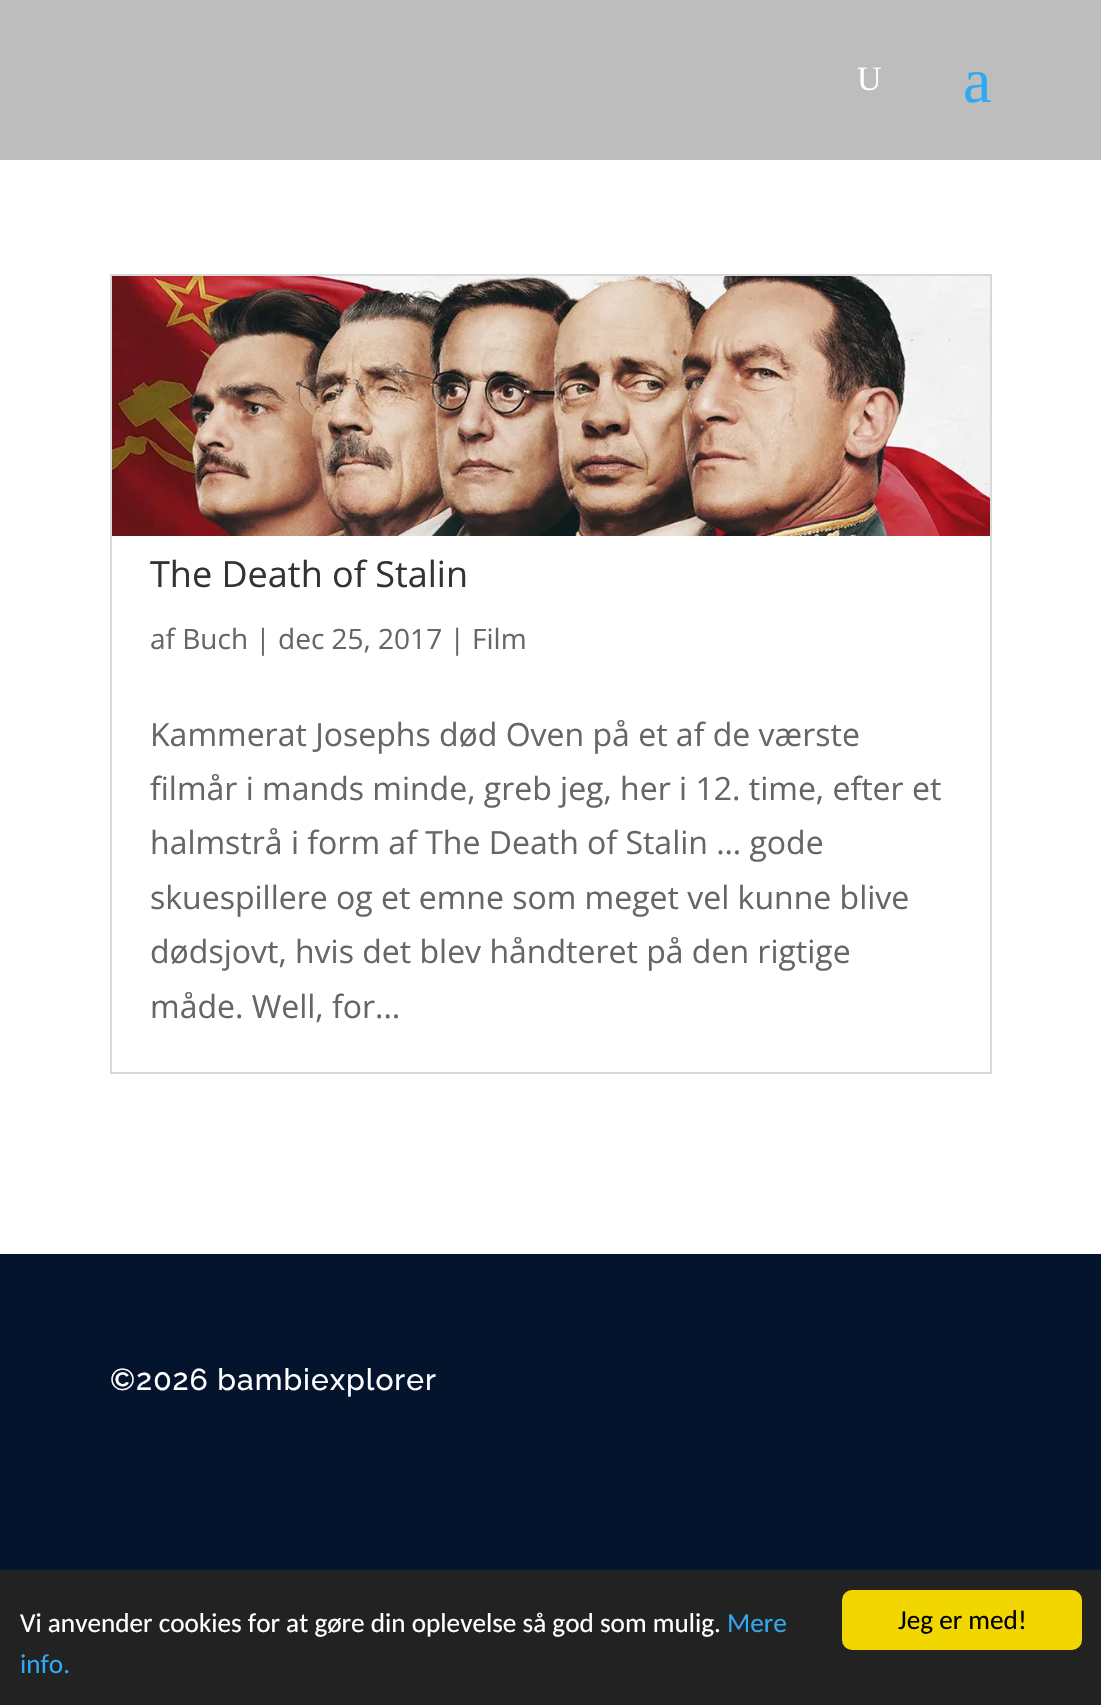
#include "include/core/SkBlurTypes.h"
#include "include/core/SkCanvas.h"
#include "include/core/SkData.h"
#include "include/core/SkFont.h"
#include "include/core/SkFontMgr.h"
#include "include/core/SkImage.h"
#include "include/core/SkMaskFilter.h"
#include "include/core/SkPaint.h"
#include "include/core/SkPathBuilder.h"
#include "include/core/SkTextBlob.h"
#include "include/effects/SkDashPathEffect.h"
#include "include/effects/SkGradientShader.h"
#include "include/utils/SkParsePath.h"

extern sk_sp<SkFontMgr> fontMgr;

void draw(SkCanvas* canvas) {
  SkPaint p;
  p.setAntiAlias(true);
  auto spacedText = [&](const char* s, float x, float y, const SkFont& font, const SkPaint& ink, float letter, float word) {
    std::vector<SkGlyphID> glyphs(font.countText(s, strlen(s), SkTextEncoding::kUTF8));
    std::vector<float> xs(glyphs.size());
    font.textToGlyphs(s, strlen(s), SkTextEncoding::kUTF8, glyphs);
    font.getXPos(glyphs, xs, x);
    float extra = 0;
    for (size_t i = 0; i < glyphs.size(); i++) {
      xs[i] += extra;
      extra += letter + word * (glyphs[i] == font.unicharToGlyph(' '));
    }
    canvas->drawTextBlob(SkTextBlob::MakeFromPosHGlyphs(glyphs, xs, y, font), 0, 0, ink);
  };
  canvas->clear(SK_ColorWHITE);
  p.setColor(SkColorSetRGB(189, 189, 189));
  canvas->drawRect(SkRect::MakeLTRB(0, 0, 1101, 160), p);
  p.setStyle(SkPaint::kStroke_Style);
  p.setStrokeWidth(2);
  p.setColor(SkColorSetRGB(216, 216, 216));
  canvas->drawRect(SkRect::MakeLTRB(111, 275, 991, 1073), p);
  canvas->drawImageRect(SkImages::DeferredFromEncodedData(SkData::MakeFromFileName("images/1.png")), SkRect::MakeLTRB(112, 276, 990, 536), SkSamplingOptions());
  p.setStyle(SkPaint::kFill_Style);
  p.setColor(SkColorSetRGB(5, 20, 45));
  canvas->drawRect(SkRect::MakeLTRB(0, 1254, 1101, 1570), p);
  p.setColor(SkColorSetRGB(34, 34, 34));
  canvas->drawRect(SkRect::MakeLTRB(0, 1570, 1101, 1705), p);
  p.setColor(SkColorSetRGB(241, 214, 0));
  canvas->drawRoundRect(SkRect::MakeLTRB(842, 1590, 1082, 1650), 10, 10, p);
  SkFont font1(fontMgr->matchFamilyStyle("Liberation Serif", SkFontStyle::Normal()), 34);
  font1.setSubpixel(true);
  p.setColor(SK_ColorWHITE);
  canvas->drawString("U", 857, 90, font1, p);
  SkFont font2(fontMgr->matchFamilyStyle("Liberation Serif", SkFontStyle::Normal()), 64);
  font2.setSubpixel(true);
  p.setColor(SkColorSetRGB(49, 168, 240));
  canvas->drawString("a", 963, 102, font2, p);
  SkFont font3(fontMgr->matchFamilyStyle("Open Sans", SkFontStyle::Normal()), 36);
  font3.setSubpixel(true);
  p.setColor(SkColorSetRGB(51, 51, 51));
  canvas->drawString("The Death of Stalin", 150, 587, font3, p);
  SkFont font4(fontMgr->matchFamilyStyle("Open Sans", SkFontStyle::Normal()), 28);
  font4.setSubpixel(true);
  p.setColor(SkColorSetRGB(102, 102, 102));
  canvas->drawString("af Buch | dec 25, 2017 | Film", 150, 649, font4, p);
  SkFont font5(fontMgr->matchFamilyStyle("Open Sans", SkFontStyle::Normal()), 32);
  font5.setSubpixel(true);
  canvas->drawString("Kammerat Josephs død Oven på et af de værste", 150, 746, font5, p);
  canvas->drawString("filmår i mands minde, greb jeg, her i 12. time, efter et", 150, 800, font5, p);
  canvas->drawString("halmstrå i form af The Death of Stalin … gode", 150, 854, font5, p);
  canvas->drawString("skuespillere og et emne som meget vel kunne blive", 150, 909, font5, p);
  canvas->drawString("dødsjovt, hvis det blev håndteret på den rigtige", 150, 963, font5, p);
  canvas->drawString("måde. Well, for...", 150, 1018, font5, p);
  SkFont font6(fontMgr->matchFamilyStyle("Raleway", SkFontStyle(100, SkFontStyle::kNormal_Width, SkFontStyle::kUpright_Slant)), 30);
  font6.setSubpixel(true);
  p.setColor(SK_ColorWHITE);
  spacedText("©2026 bambiexplorer", 110, 1390, font6, p, 1, 0);
  SkFont font7(fontMgr->matchFamilyStyle("Carlito", SkFontStyle::Normal()), 27.2f);
  font7.setSubpixel(true);
  canvas->drawString("Vi anvender cookies for at gøre din oplevelse så god som mulig.", 20, 1632, font7, p);
  p.setColor(SkColorSetRGB(49, 168, 240));
  canvas->drawString("Mere", 727, 1632, font7, p);
  canvas->drawString("info.", 20, 1673, font7, p);
  p.setColor(SK_ColorBLACK);
  canvas->drawString("Jeg er med!", 898, 1629, font7, p);
}
